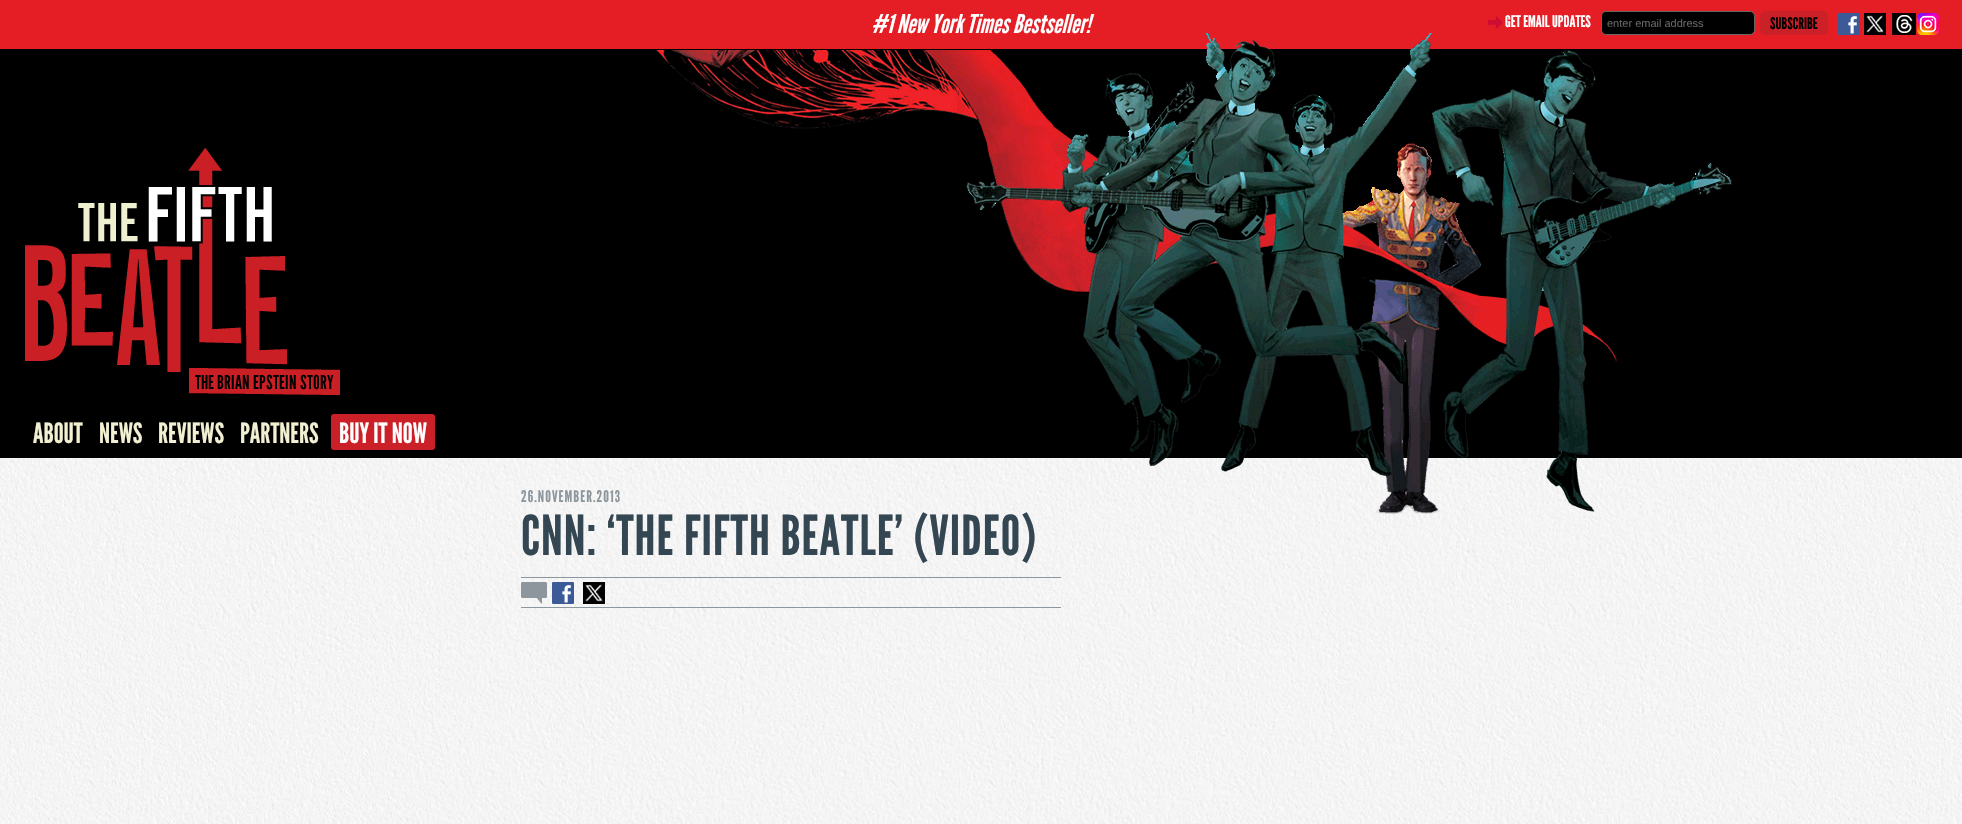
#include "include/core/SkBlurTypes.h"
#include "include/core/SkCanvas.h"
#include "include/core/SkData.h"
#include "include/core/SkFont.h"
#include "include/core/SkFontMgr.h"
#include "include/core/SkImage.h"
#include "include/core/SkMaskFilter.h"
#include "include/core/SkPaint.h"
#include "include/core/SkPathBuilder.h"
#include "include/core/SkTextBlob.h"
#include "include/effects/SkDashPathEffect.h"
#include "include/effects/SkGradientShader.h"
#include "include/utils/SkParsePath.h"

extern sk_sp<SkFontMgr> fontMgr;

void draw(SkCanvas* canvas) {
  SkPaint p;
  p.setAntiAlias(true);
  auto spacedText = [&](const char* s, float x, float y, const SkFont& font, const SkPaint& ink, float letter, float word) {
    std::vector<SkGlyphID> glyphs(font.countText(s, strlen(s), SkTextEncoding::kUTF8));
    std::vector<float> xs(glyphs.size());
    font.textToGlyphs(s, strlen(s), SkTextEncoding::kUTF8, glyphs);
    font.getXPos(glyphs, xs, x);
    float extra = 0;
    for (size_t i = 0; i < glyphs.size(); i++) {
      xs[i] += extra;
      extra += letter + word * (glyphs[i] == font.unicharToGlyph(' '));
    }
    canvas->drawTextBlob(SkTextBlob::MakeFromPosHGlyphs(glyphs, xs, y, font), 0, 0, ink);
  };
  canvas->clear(SK_ColorBLACK);
  p.setColor(SkColorSetRGB(229, 30, 38));
  canvas->drawRect(SkRect::MakeLTRB(0, 0, 1962, 49), p);
  canvas->drawImageRect(SkImages::DeferredFromEncodedData(SkData::MakeFromFileName("images/1.png")), SkRect::MakeLTRB(1488, 16, 1503, 29), SkSamplingOptions());
  p.setColor(SkColorSetRGB(203, 32, 39));
  canvas->drawRoundRect(SkRect::MakeLTRB(1760, 11, 1828, 35), 5, 5, p);
  canvas->drawImageRect(SkImages::DeferredFromEncodedData(SkData::MakeFromFileName("images/2.png")), SkRect::MakeLTRB(1838, 13, 1860, 35), SkSamplingOptions());
  canvas->drawImageRect(SkImages::DeferredFromEncodedData(SkData::MakeFromFileName("images/3.png")), SkRect::MakeLTRB(1864, 13, 1890, 35), SkSamplingOptions());
  canvas->drawImageRect(SkImages::DeferredFromEncodedData(SkData::MakeFromFileName("images/4.png")), SkRect::MakeLTRB(1892, 13, 1916, 35), SkSamplingOptions());
  canvas->drawImageRect(SkImages::DeferredFromEncodedData(SkData::MakeFromFileName("images/5.png")), SkRect::MakeLTRB(1917, 13, 1939, 35), SkSamplingOptions());
  canvas->drawImageRect(SkImages::DeferredFromEncodedData(SkData::MakeFromFileName("images/6.png")), SkRect::MakeLTRB(25, 148, 340, 395), SkSamplingOptions());
  canvas->drawRoundRect(SkRect::MakeLTRB(331, 414, 435, 450), 3, 3, p);
  canvas->drawImageRect(SkImages::DeferredFromEncodedData(SkData::MakeFromFileName("images/7.png")), SkRect::MakeLTRB(0, 458, 1962, 824), SkSamplingOptions());
  canvas->drawImageRect(SkImages::DeferredFromEncodedData(SkData::MakeFromFileName("images/9.png")), SkRect::MakeLTRB(656, 50, 1617, 514), SkSamplingOptions());
  p.setColor(SkColorSetRGB(140, 150, 156));
  canvas->drawRect(SkRect::MakeLTRB(521, 577, 1061, 578), p);
  canvas->drawRect(SkRect::MakeLTRB(521, 607, 1061, 608), p);
  canvas->drawImageRect(SkImages::DeferredFromEncodedData(SkData::MakeFromFileName("images/10.png")), SkRect::MakeLTRB(521, 582, 547, 604), SkSamplingOptions());
  canvas->drawImageRect(SkImages::DeferredFromEncodedData(SkData::MakeFromFileName("images/11.png")), SkRect::MakeLTRB(552, 582, 574, 604), SkSamplingOptions());
  canvas->drawImageRect(SkImages::DeferredFromEncodedData(SkData::MakeFromFileName("images/12.png")), SkRect::MakeLTRB(583, 582, 609, 604), SkSamplingOptions());
  SkFont font1(fontMgr->matchFamilyStyle("League Gothic", SkFontStyle::Italic()), 26);
  font1.setSubpixel(true);
  p.setColor(SK_ColorWHITE);
  canvas->drawString("#1 New York Times Bestseller!", 871, 33, font1, p);
  SkFont font2(fontMgr->matchFamilyStyle("League Gothic", SkFontStyle::Normal()), 16);
  font2.setSubpixel(true);
  canvas->drawString("GET EMAIL UPDATES", 1505, 27, font2, p);
  p.setColor(SK_ColorBLACK);
  canvas->drawString("SUBSCRIBE", 1770, 29, font2, p);
  SkFont font3(fontMgr->matchFamilyStyle("League Gothic", SkFontStyle::Normal()), 28);
  font3.setSubpixel(true);
  p.setColor(SkColorSetRGB(242, 240, 210));
  canvas->drawString("ABOUT", 33, 443, font3, p);
  canvas->drawString("NEWS", 99, 443, font3, p);
  canvas->drawString("REVIEWS", 158, 443, font3, p);
  canvas->drawString("PARTNERS", 240, 443, font3, p);
  p.setColor(SK_ColorWHITE);
  canvas->drawString("BUY IT NOW", 339, 443, font3, p);
  canvas->drawImageRect(SkImages::DeferredFromEncodedData(SkData::MakeFromFileName("images/8.png")), SkRect::MakeLTRB(966, 33, 1732, 512), SkSamplingOptions());
  p.setColor(SK_ColorBLACK);
  canvas->drawRoundRect(SkRect::MakeLTRB(1601.5f, 11.5f, 1754.5f, 34.5f), 4.5f, 4.5f, p);
  p.setStyle(SkPaint::kStroke_Style);
  p.setStrokeWidth(1);
  p.setColor(SkColorSetRGB(102, 102, 102));
  canvas->drawRoundRect(SkRect::MakeLTRB(1601.5f, 11.5f, 1754.5f, 34.5f), 4.5f, 4.5f, p);
  SkFont font4(fontMgr->matchFamilyStyle("Liberation Sans", SkFontStyle::Normal()), 11);
  font4.setSubpixel(true);
  p.setStyle(SkPaint::kFill_Style);
  canvas->drawString("enter email address", 1607, 27, font4, p);
  p.setColor(SkColorSetRGB(140, 150, 156));
  spacedText("26.NOVEMBER.2013", 521, 502, font2, p, 1.05f, 0);
  SkFont font5(fontMgr->matchFamilyStyle("League Gothic", SkFontStyle::Normal()), 55);
  font5.setSubpixel(true);
  p.setColor(SkColorSetRGB(51, 70, 82));
  spacedText("CNN: ‘THE FIFTH BEATLE’ (VIDEO)", 521, 555, font5, p, 1.05f, 0);
}
